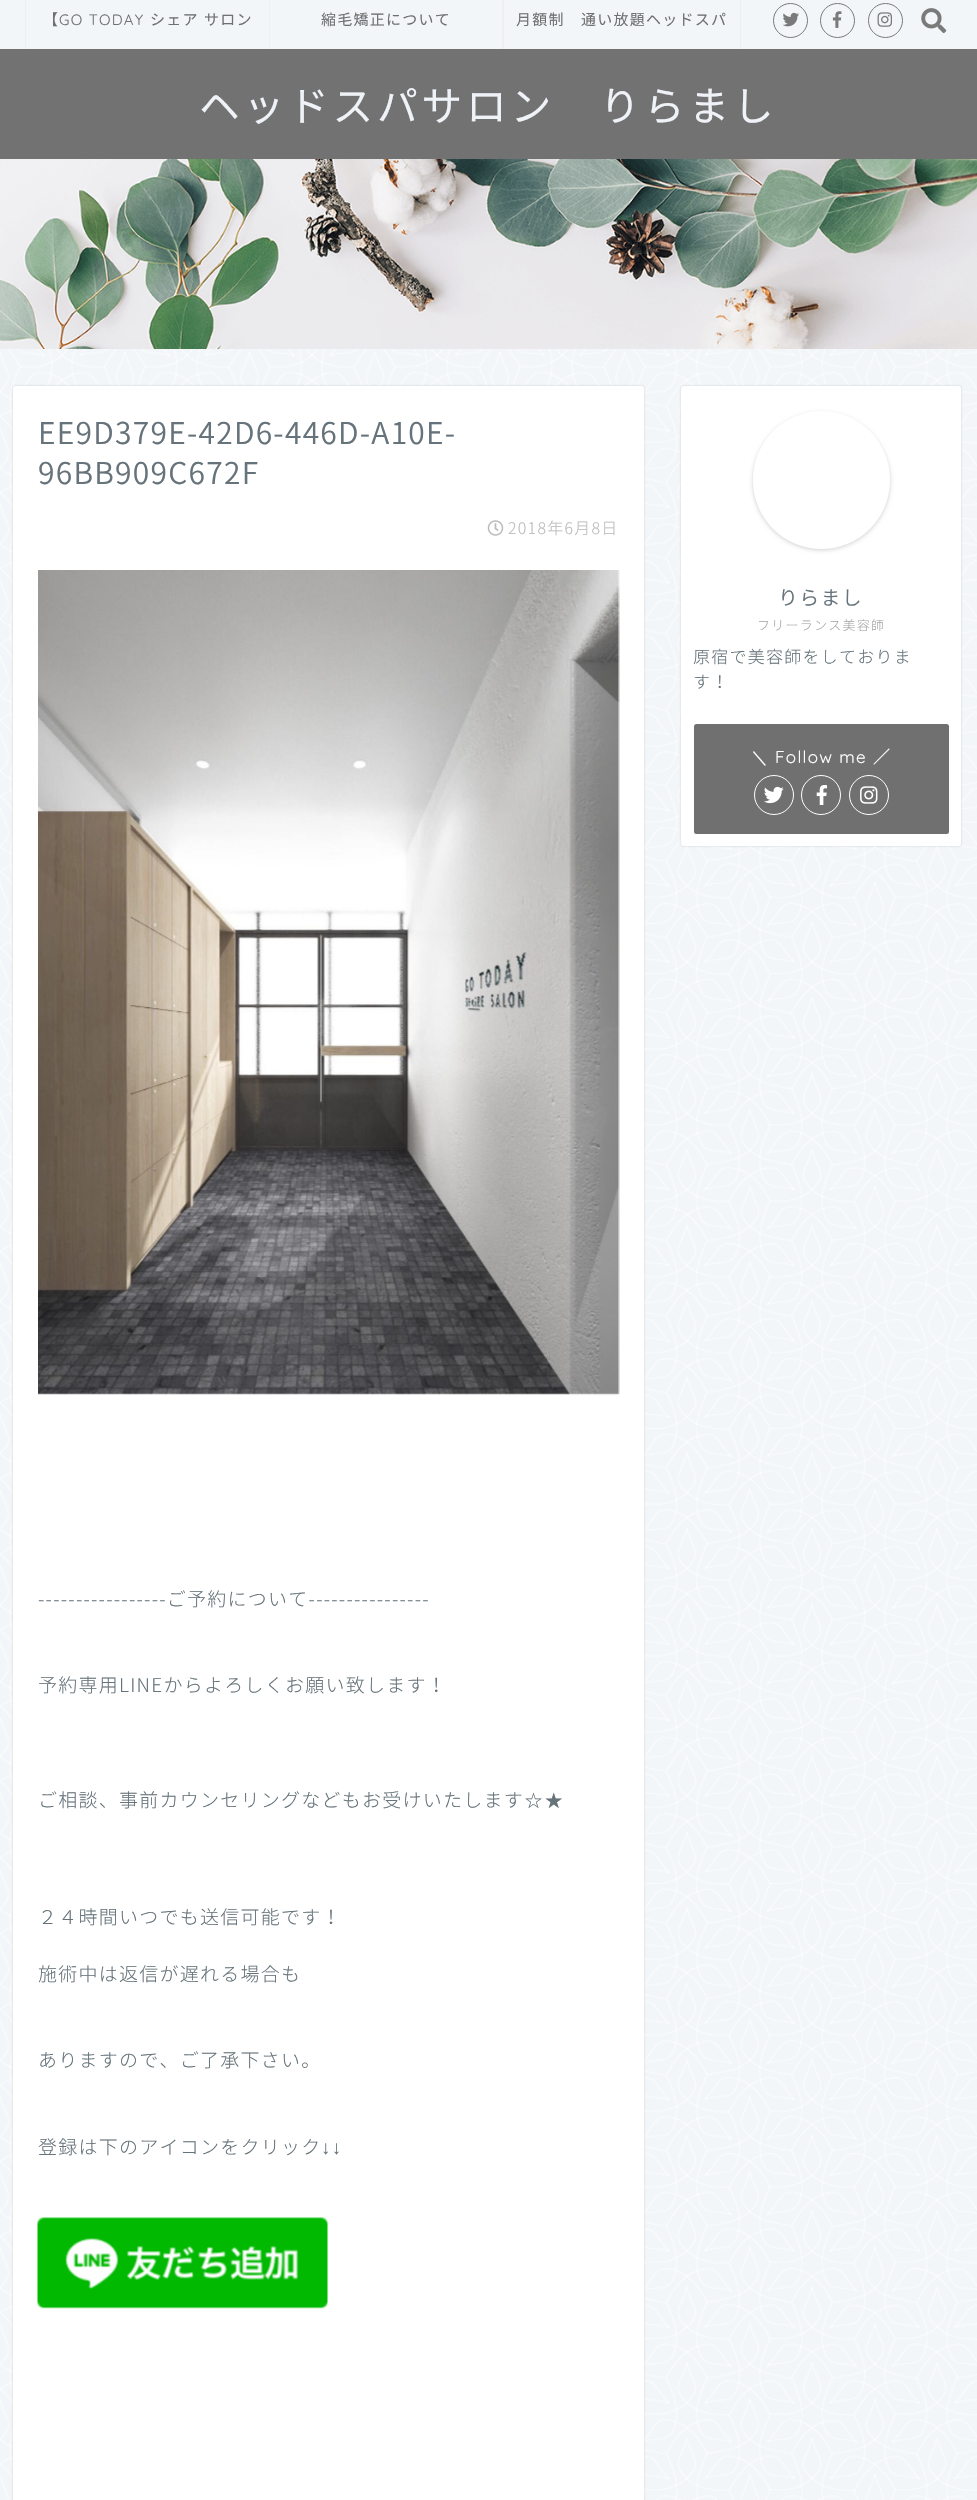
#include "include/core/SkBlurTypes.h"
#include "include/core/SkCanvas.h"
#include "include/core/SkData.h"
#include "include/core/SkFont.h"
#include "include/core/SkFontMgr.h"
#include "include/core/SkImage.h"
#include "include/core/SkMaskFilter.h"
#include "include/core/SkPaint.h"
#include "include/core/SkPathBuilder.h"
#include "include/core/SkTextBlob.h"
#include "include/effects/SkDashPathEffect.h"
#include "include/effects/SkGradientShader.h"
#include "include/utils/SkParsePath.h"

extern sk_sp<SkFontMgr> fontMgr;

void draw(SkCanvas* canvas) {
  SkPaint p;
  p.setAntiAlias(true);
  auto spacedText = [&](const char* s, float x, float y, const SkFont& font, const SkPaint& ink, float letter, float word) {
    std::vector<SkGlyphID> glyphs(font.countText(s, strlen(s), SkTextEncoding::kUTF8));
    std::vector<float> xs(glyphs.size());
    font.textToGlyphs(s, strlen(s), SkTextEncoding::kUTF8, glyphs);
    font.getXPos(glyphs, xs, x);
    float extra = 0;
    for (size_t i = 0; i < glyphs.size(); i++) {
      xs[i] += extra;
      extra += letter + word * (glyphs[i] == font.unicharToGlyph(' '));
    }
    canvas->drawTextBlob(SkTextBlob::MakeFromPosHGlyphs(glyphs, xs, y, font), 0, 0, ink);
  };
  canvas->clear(SkColorSetRGB(242, 246, 249));
  canvas->drawImageRect(SkImages::DeferredFromEncodedData(SkData::MakeFromFileName("images/1.png")), SkRect::MakeLTRB(0, 349, 977, 2500), SkSamplingOptions());
  p.setColor(SkColorSetRGB(239, 239, 239));
  canvas->drawPath(SkPathBuilder().moveTo(25, 49).lineTo(25, -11).lineTo(26, -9).lineTo(26, 49).close().detach(), p);
  canvas->drawPath(SkPathBuilder().moveTo(269, 49).lineTo(269, -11).lineTo(270, -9).lineTo(270, 49).close().detach(), p);
  canvas->drawPath(SkPathBuilder().moveTo(741, -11).lineTo(741, 49).lineTo(740, 49).lineTo(740, -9).close().detach(), p);
  canvas->drawPath(SkPathBuilder().moveTo(502, 49).lineTo(502, -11).lineTo(504, -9).lineTo(504, 49).close().detach(), p);
  p.setStyle(SkPaint::kStroke_Style);
  p.setStrokeWidth(1);
  p.setColor(SkColorSetRGB(122, 122, 122));
  canvas->drawCircle(790.5f, 20.5f, 17, p);
  canvas->drawImageRect(SkImages::DeferredFromEncodedData(SkData::MakeFromFileName("images/2.png")), SkRect::MakeLTRB(782, 12, 799, 27), SkSamplingOptions());
  canvas->drawCircle(837.5f, 20.5f, 17, p);
  canvas->drawImageRect(SkImages::DeferredFromEncodedData(SkData::MakeFromFileName("images/3.png")), SkRect::MakeLTRB(832, 11, 842, 28), SkSamplingOptions());
  canvas->drawCircle(885.5f, 20.5f, 17, p);
  canvas->drawImageRect(SkImages::DeferredFromEncodedData(SkData::MakeFromFileName("images/4.png")), SkRect::MakeLTRB(877, 12, 892, 27), SkSamplingOptions());
  canvas->drawImageRect(SkImages::DeferredFromEncodedData(SkData::MakeFromFileName("images/5.png")), SkRect::MakeLTRB(921, 8, 947, 34), SkSamplingOptions());
  p.setStyle(SkPaint::kFill_Style);
  p.setColor(SkColorSetRGB(114, 114, 114));
  canvas->drawRect(SkRect::MakeLTRB(0, 49, 977, 159), p);
  canvas->drawImageRect(SkImages::DeferredFromEncodedData(SkData::MakeFromFileName("images/6.png")), SkRect::MakeLTRB(0, 159, 977, 349), SkSamplingOptions());
  p.setColor(SkColorSetARGB(46, 0, 0, 0));
  p.setMaskFilter(SkMaskFilter::MakeBlur(kNormal_SkBlurStyle, 1));
  canvas->drawRoundRect(SkRect::MakeLTRB(13, 386, 644, 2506), 2.5f, 2.5f, p);
  p.setMaskFilter(nullptr);
  p.setColor(SK_ColorWHITE);
  canvas->drawRoundRect(SkRect::MakeLTRB(13, 386, 644, 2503), 2.5f, 2.5f, p);
  canvas->drawImageRect(SkImages::DeferredFromEncodedData(SkData::MakeFromFileName("images/7.png")), SkRect::MakeLTRB(487, 520, 504, 536), SkSamplingOptions());
  canvas->drawImageRect(SkImages::DeferredFromEncodedData(SkData::MakeFromFileName("images/8.png")), SkRect::MakeLTRB(38, 570, 620, 1395), SkSamplingOptions());
  canvas->drawImageRect(SkImages::DeferredFromEncodedData(SkData::MakeFromFileName("images/9.png")), SkRect::MakeLTRB(37, 2217, 328, 2309), SkSamplingOptions());
  p.setColor(SkColorSetARGB(46, 0, 0, 0));
  p.setMaskFilter(SkMaskFilter::MakeBlur(kNormal_SkBlurStyle, 1));
  canvas->drawRoundRect(SkRect::MakeLTRB(681, 386, 961, 846), 2.5f, 2.5f, p);
  p.setMaskFilter(nullptr);
  p.setColor(SK_ColorWHITE);
  canvas->drawRoundRect(SkRect::MakeLTRB(681, 386, 961, 846), 2.5f, 2.5f, p);
  p.setColor(SkColorSetARGB(46, 0, 0, 0));
  p.setMaskFilter(SkMaskFilter::MakeBlur(kNormal_SkBlurStyle, 2));
  canvas->drawRoundRect(SkRect::MakeLTRB(753, 413, 890, 550), 68.5f, 68.5f, p);
  p.setMaskFilter(nullptr);
  p.setColor(SK_ColorWHITE);
  canvas->drawRoundRect(SkRect::MakeLTRB(753, 411, 890, 549), 68.5f, 68.5f, p);
  p.setColor(SkColorSetRGB(112, 112, 112));
  canvas->drawRoundRect(SkRect::MakeLTRB(694, 724, 949, 834), 2.5f, 2.5f, p);
  p.setStyle(SkPaint::kStroke_Style);
  p.setColor(SK_ColorWHITE);
  canvas->drawCircle(774, 795, 19.5f, p);
  canvas->drawImageRect(SkImages::DeferredFromEncodedData(SkData::MakeFromFileName("images/10.png")), SkRect::MakeLTRB(764, 786, 784, 804), SkSamplingOptions());
  canvas->drawCircle(821, 795, 19.5f, p);
  canvas->drawImageRect(SkImages::DeferredFromEncodedData(SkData::MakeFromFileName("images/11.png")), SkRect::MakeLTRB(816, 785, 828, 805), SkSamplingOptions());
  canvas->drawCircle(869, 795, 19.5f, p);
  canvas->drawImageRect(SkImages::DeferredFromEncodedData(SkData::MakeFromFileName("images/12.png")), SkRect::MakeLTRB(860, 786, 878, 804), SkSamplingOptions());
  SkFont font1(fontMgr->matchFamilyStyle("Noto Sans JP", SkFontStyle::Normal()), 15);
  font1.setSubpixel(true);
  p.setStyle(SkPaint::kFill_Style);
  p.setColor(SkColorSetRGB(112, 112, 112));
  spacedText("【", 43, 25, font1, p, 1.25f, 0);
  SkFont font2(fontMgr->matchFamilyStyle("Quicksand", SkFontStyle(300, SkFontStyle::kNormal_Width, SkFontStyle::kUpright_Slant)), 15);
  font2.setSubpixel(true);
  spacedText("GO TODAY", 59, 25, font2, p, 1.25f, 0);
  spacedText("シェア", 150, 25, font1, p, 1.25f, 0);
  spacedText("サロン", 204, 25, font1, p, 1.25f, 0);
  spacedText("縮毛矯正について", 321, 25, font1, p, 1.25f, 0);
  spacedText("月額制　通い放題ヘッドスパ", 516, 25, font1, p, 1.25f, 0);
  SkFont font3(fontMgr->matchFamilyStyle("Noto Sans JP", SkFontStyle::Normal()), 40.75f);
  font3.setSubpixel(true);
  p.setColor(SkColorSetRGB(239, 242, 247));
  spacedText("ヘッドスパサロン　りらまし", 199, 121, font3, p, 3.75f, 0);
  SkFont font4(fontMgr->matchFamilyStyle("Noto Sans JP", SkFontStyle(300, SkFontStyle::kNormal_Width, SkFontStyle::kUpright_Slant)), 30);
  font4.setSubpixel(true);
  p.setColor(SkColorSetRGB(102, 115, 122));
  spacedText("EE9D379E-42D6-446D-A10E-", 38, 444, font4, p, 1.25f, 0);
  spacedText("96BB909C672F", 38, 484, font4, p, 1.25f, 0);
  SkFont font5(fontMgr->matchFamilyStyle("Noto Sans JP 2", SkFontStyle(300, SkFontStyle::kNormal_Width, SkFontStyle::kUpright_Slant)), 16);
  font5.setSubpixel(true);
  p.setColor(SkColorSetRGB(187, 187, 187));
  spacedText("2018年6月8日", 508, 534, font5, p, 1.25f, 0);
  SkFont font6(fontMgr->matchFamilyStyle("Noto Sans JP 2", SkFontStyle(300, SkFontStyle::kNormal_Width, SkFontStyle::kUpright_Slant)), 19);
  font6.setSubpixel(true);
  p.setColor(SkColorSetRGB(102, 115, 122));
  spacedText("-----------------ご予約について----------------", 38, 1606, font6, p, 1.25f, 0);
  spacedText("予約専用LINEからよろしくお願い致します！", 38, 1692, font6, p, 1.25f, 0);
  spacedText("ご相談、事前カウンセリングなどもお受けいたします", 38, 1807, font6, p, 1.25f, 0);
  SkFont font7(fontMgr->matchFamilyStyle("WenQuanYi Zen Hei", SkFontStyle(500, SkFontStyle::kNormal_Width, SkFontStyle::kUpright_Slant)), 19);
  font7.setSubpixel(true);
  spacedText("☆★", 524, 1807, font7, p, 1.25f, 0);
  spacedText("２４時間いつでも送信可能です！", 38, 1924, font6, p, 1.25f, 0);
  spacedText("施術中は返信が遅れる場合も", 38, 1981, font6, p, 1.25f, 0);
  spacedText("ありますので、ご了承下さい。", 38, 2067, font6, p, 1.25f, 0);
  spacedText("登録は下のアイコンをクリック", 38, 2154, font6, p, 1.25f, 0);
  SkFont font8(fontMgr->matchFamilyStyle("Liberation Sans", SkFontStyle::Normal()), 19);
  font8.setSubpixel(true);
  spacedText("↓↓", 321, 2154, font8, p, 1.25f, 0);
  SkFont font9(fontMgr->matchFamilyStyle("Noto Sans JP", SkFontStyle(300, SkFontStyle::kNormal_Width, SkFontStyle::kUpright_Slant)), 20);
  font9.setSubpixel(true);
  spacedText("りらまし", 778, 605, font9, p, 1.25f, 0);
  SkFont font10(fontMgr->matchFamilyStyle("Noto Sans JP 2", SkFontStyle(300, SkFontStyle::kNormal_Width, SkFontStyle::kUpright_Slant)), 13);
  font10.setSubpixel(true);
  p.setColor(SkColorSetRGB(166, 166, 166));
  spacedText("フリーランス美容師", 757, 630, font10, p, 1.25f, 0);
  SkFont font11(fontMgr->matchFamilyStyle("Noto Sans JP 2", SkFontStyle(300, SkFontStyle::kNormal_Width, SkFontStyle::kUpright_Slant)), 17);
  font11.setSubpixel(true);
  p.setColor(SkColorSetRGB(102, 115, 122));
  spacedText("原宿で美容師をしておりま", 693, 663, font11, p, 1.25f, 0);
  spacedText("す！", 693, 688, font11, p, 1.25f, 0);
  SkFont font12(fontMgr->matchFamilyStyle("WenQuanYi Zen Hei", SkFontStyle(500, SkFontStyle::kNormal_Width, SkFontStyle::kUpright_Slant)), 17);
  font12.setSubpixel(true);
  p.setColor(SK_ColorWHITE);
  spacedText("＼", 751, 763, font12, p, 1.25f, 0);
  SkFont font13(fontMgr->matchFamilyStyle("Quicksand", SkFontStyle(300, SkFontStyle::kNormal_Width, SkFontStyle::kUpright_Slant)), 17);
  font13.setSubpixel(true);
  spacedText("Follow me", 775, 763, font13, p, 1.25f, 0);
  SkFont font14(fontMgr->matchFamilyStyle("Noto Sans JP", SkFontStyle::Normal()), 17);
  font14.setSubpixel(true);
  spacedText("／", 873, 763, font14, p, 1.25f, 0);
}
